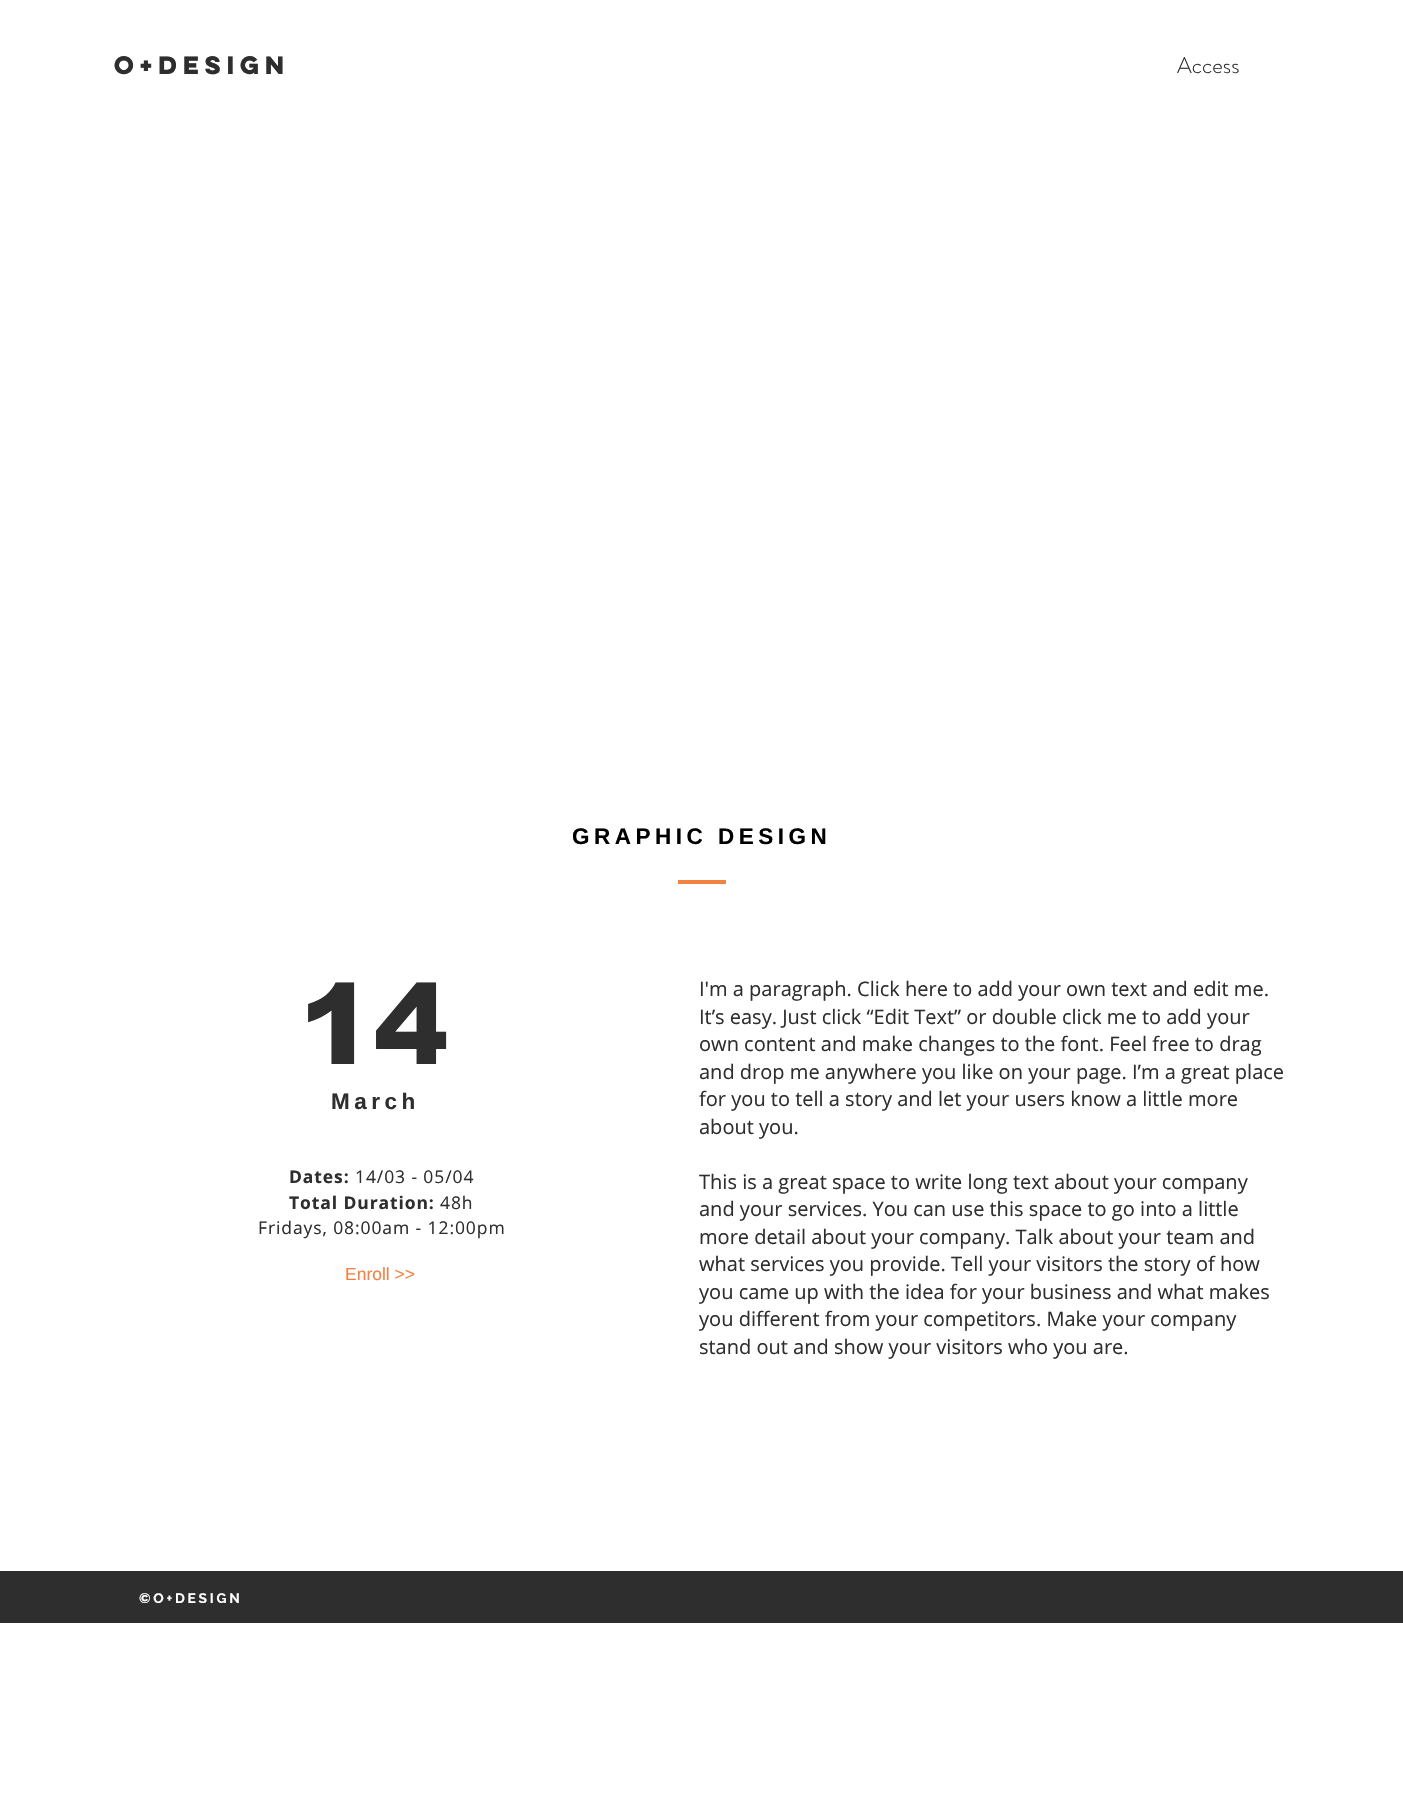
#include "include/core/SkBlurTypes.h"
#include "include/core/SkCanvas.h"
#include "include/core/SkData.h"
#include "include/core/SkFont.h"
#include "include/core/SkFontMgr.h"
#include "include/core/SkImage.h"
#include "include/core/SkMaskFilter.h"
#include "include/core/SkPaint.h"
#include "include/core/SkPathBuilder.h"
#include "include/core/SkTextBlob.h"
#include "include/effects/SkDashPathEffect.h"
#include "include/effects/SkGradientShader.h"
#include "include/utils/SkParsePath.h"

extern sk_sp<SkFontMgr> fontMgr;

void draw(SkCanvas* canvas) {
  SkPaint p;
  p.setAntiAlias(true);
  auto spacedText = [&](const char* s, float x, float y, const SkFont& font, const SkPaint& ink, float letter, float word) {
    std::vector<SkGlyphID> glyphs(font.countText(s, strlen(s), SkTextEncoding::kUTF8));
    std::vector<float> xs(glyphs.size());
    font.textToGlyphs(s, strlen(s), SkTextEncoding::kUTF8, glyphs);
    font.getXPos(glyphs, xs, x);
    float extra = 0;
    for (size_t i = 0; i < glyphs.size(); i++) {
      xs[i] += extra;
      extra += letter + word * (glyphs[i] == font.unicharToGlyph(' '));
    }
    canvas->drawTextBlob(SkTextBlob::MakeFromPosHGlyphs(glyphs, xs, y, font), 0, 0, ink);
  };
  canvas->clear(SK_ColorWHITE);
  p.setColor(SkColorSetRGB(242, 130, 65));
  canvas->drawRect(SkRect::MakeLTRB(678, 880, 726, 884), p);
  p.setColor(SkColorSetRGB(47, 46, 46));
  canvas->drawRect(SkRect::MakeLTRB(0, 1571, 1403, 1623), p);
  SkFont font1(fontMgr->matchFamilyStyle("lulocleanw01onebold", SkFontStyle::Bold()), 22.5f);
  font1.setSubpixel(true);
  spacedText("O+DESIGN", 114, 74, font1, p, 1, 0);
  SkFont font2(fontMgr->matchFamilyStyle("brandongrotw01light", SkFontStyle(300, SkFontStyle::kNormal_Width, SkFontStyle::kUpright_Slant)), 22.5f);
  font2.setSubpixel(true);
  canvas->drawString("Access", 1177, 73, font2, p);
  SkFont font3(fontMgr->matchFamilyStyle("Liberation Sans", SkFontStyle::Bold()), 22.5f);
  font3.setSubpixel(true);
  p.setColor(SK_ColorBLACK);
  spacedText("GRAPHIC DESIGN", 572, 844, font3, p, 4.5f, 0);
  SkFont font4(fontMgr->matchFamilyStyle("arial", SkFontStyle(900, SkFontStyle::kNormal_Width, SkFontStyle::kUpright_Slant)), 112);
  font4.setSubpixel(true);
  p.setColor(SkColorSetRGB(47, 46, 46));
  canvas->drawString("14", 299, 1064, font4, p);
  spacedText("March", 331, 1109, font3, p, 4.5f, 0);
  SkFont font5(fontMgr->matchFamilyStyle("Open Sans", SkFontStyle::Bold()), 17.5f);
  font5.setSubpixel(true);
  spacedText("Dates:", 289, 1183, font5, p, 0.9f, 0);
  SkFont font6(fontMgr->matchFamilyStyle("Open Sans", SkFontStyle::Normal()), 17.5f);
  font6.setSubpixel(true);
  spacedText("14/03 - 05/04", 355, 1183, font6, p, 0.9f, 0);
  spacedText("Total Duration:", 289, 1209, font5, p, 0.9f, 0);
  spacedText("48h", 440, 1209, font6, p, 0.9f, 0);
  spacedText("Fridays, 08:00am - 12:00pm", 258, 1234, font6, p, 0.9f, 0);
  SkFont font7(fontMgr->matchFamilyStyle("Liberation Sans", SkFontStyle::Normal()), 17.5f);
  font7.setSubpixel(true);
  p.setColor(SkColorSetRGB(242, 130, 65));
  canvas->drawString("Enroll >>", 345, 1280, font7, p);
  SkFont font8(fontMgr->matchFamilyStyle("Open Sans", SkFontStyle::Normal()), 20);
  font8.setSubpixel(true);
  p.setColor(SkColorSetRGB(47, 46, 46));
  canvas->drawString("I'm a paragraph. Click here to add your own text and edit me.", 699, 996, font8, p);
  canvas->drawString("It’s easy. Just click “Edit Text” or double click me to add your", 699, 1024, font8, p);
  canvas->drawString("own content and make changes to the font. Feel free to drag", 699, 1051, font8, p);
  canvas->drawString("and drop me anywhere you like on your page. I’m a great place", 699, 1079, font8, p);
  canvas->drawString("for you to tell a story and let your users know a little more", 699, 1106, font8, p);
  canvas->drawString("about you.", 699, 1134, font8, p);
  canvas->drawString("This is a great space to write long text about your company", 699, 1189, font8, p);
  canvas->drawString("and your services. You can use this space to go into a little", 699, 1216, font8, p);
  canvas->drawString("more detail about your company. Talk about your team and", 699, 1244, font8, p);
  canvas->drawString("what services you provide. Tell your visitors the story of how", 699, 1271, font8, p);
  canvas->drawString("you came up with the idea for your business and what makes", 699, 1299, font8, p);
  canvas->drawString("you different from your competitors. Make your company", 699, 1326, font8, p);
  canvas->drawString("stand out and show your visitors who you are.", 699, 1354, font8, p);
  SkFont font9(fontMgr->matchFamilyStyle("Raleway", SkFontStyle::Bold()), 13.75f);
  font9.setSubpixel(true);
  p.setColor(SK_ColorWHITE);
  spacedText("©O+DESIGN", 139, 1603, font9, p, 2.75f, 0);
}
